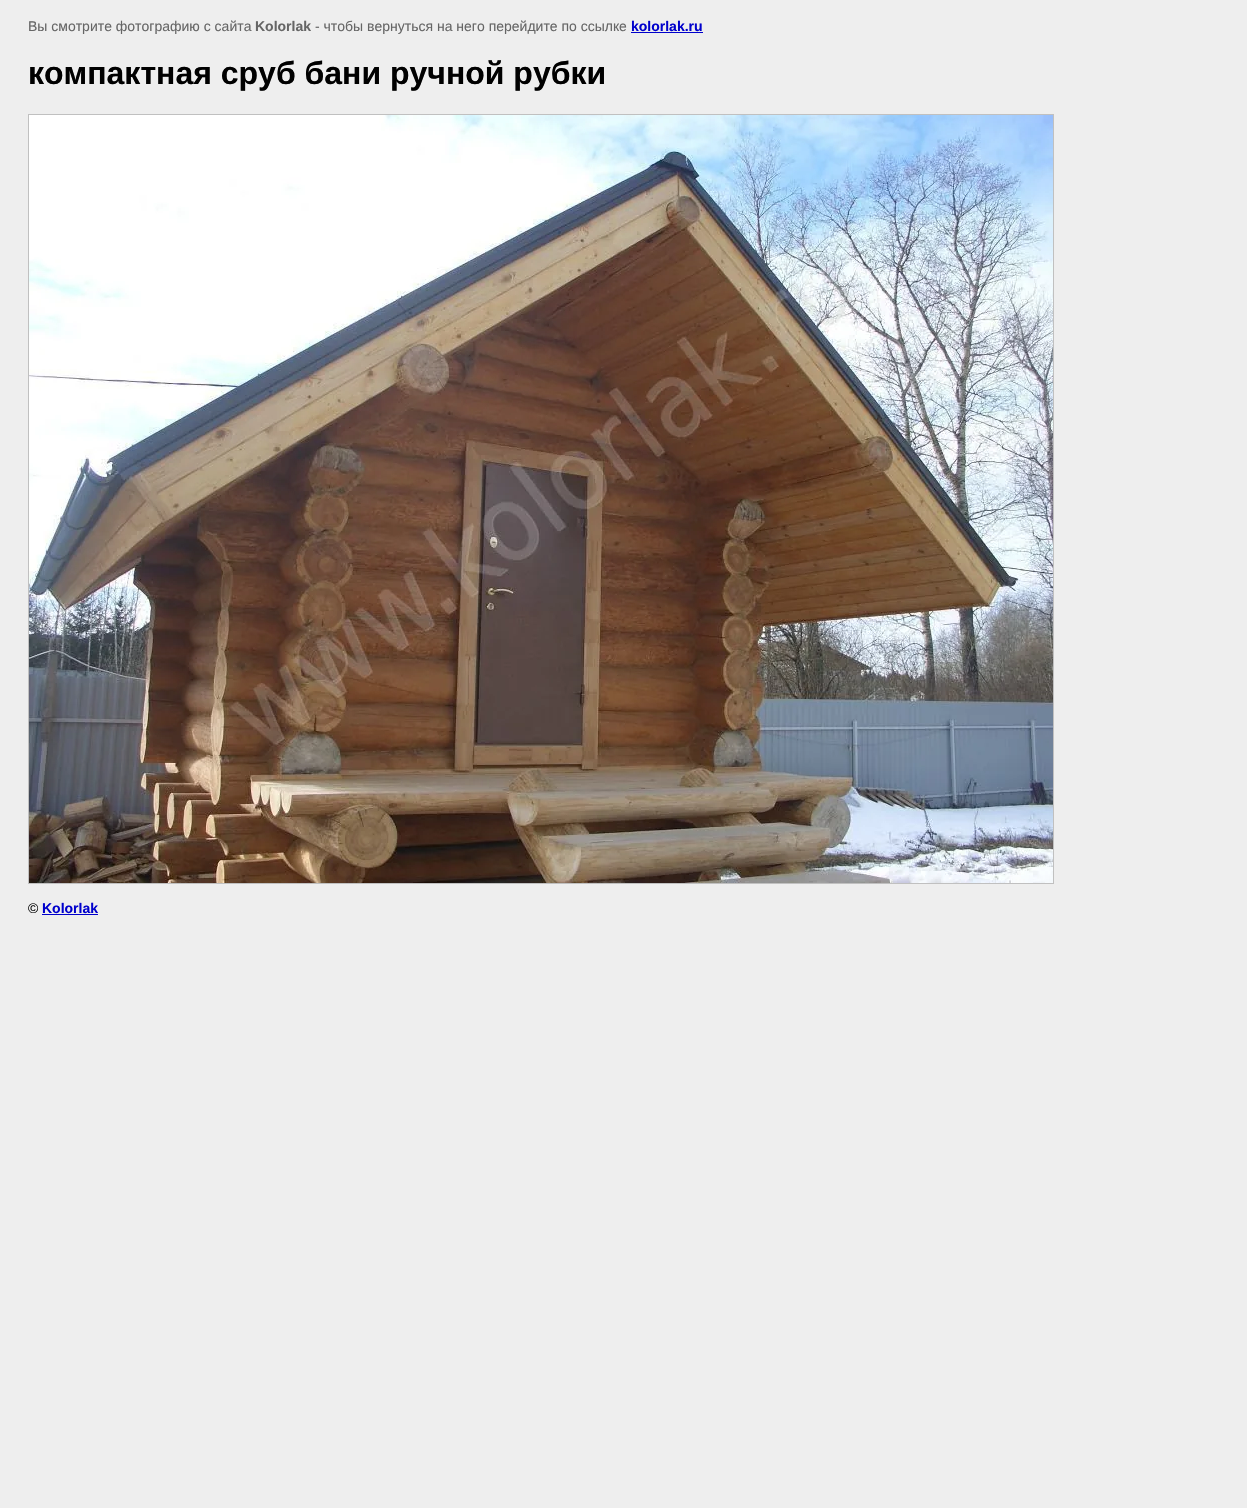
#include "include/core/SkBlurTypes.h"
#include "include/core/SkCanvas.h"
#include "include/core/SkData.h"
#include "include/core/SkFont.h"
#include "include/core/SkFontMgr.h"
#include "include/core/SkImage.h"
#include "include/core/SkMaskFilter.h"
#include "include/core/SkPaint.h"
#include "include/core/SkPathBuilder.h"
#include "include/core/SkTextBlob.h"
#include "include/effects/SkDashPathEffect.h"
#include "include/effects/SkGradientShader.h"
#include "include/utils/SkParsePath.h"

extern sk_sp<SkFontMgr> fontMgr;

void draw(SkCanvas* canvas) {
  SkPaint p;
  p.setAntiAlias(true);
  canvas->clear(SkColorSetRGB(238, 238, 238));
  p.setColor(SkColorSetRGB(0, 0, 204));
  canvas->drawRect(SkRect::MakeLTRB(631, 32, 703, 33), p);
  p.setStyle(SkPaint::kStroke_Style);
  p.setStrokeWidth(1);
  p.setColor(SkColorSetRGB(192, 192, 192));
  canvas->drawRect(SkRect::MakeLTRB(28.5f, 114.5f, 1053.5f, 883.5f), p);
  canvas->drawImageRect(SkImages::DeferredFromEncodedData(SkData::MakeFromFileName("images/1.png")), SkRect::MakeLTRB(29, 115, 1053, 883), SkSamplingOptions());
  p.setStyle(SkPaint::kFill_Style);
  p.setColor(SkColorSetRGB(0, 0, 204));
  canvas->drawRect(SkRect::MakeLTRB(42, 914, 98, 915), p);
  SkFont font1(fontMgr->matchFamilyStyle("Liberation Sans", SkFontStyle::Normal()), 14);
  font1.setSubpixel(true);
  p.setColor(SkColorSetRGB(102, 102, 102));
  canvas->drawString("Вы смотрите фотографию с сайта", 28, 31, font1, p);
  SkFont font2(fontMgr->matchFamilyStyle("Liberation Sans", SkFontStyle::Bold()), 14);
  font2.setSubpixel(true);
  canvas->drawString("Kolorlak", 255, 31, font2, p);
  canvas->drawString("- чтобы вернуться на него перейдите по ссылке", 315, 31, font1, p);
  p.setColor(SkColorSetRGB(0, 0, 204));
  canvas->drawString("kolorlak.ru", 631, 31, font2, p);
  SkFont font3(fontMgr->matchFamilyStyle("Liberation Sans", SkFontStyle::Bold()), 32);
  font3.setSubpixel(true);
  p.setColor(SK_ColorBLACK);
  canvas->drawString("компактная сруб бани ручной рубки", 28, 84, font3, p);
  canvas->drawString("©", 28, 913, font1, p);
  p.setColor(SkColorSetRGB(0, 0, 204));
  canvas->drawString("Kolorlak", 42, 913, font2, p);
}
